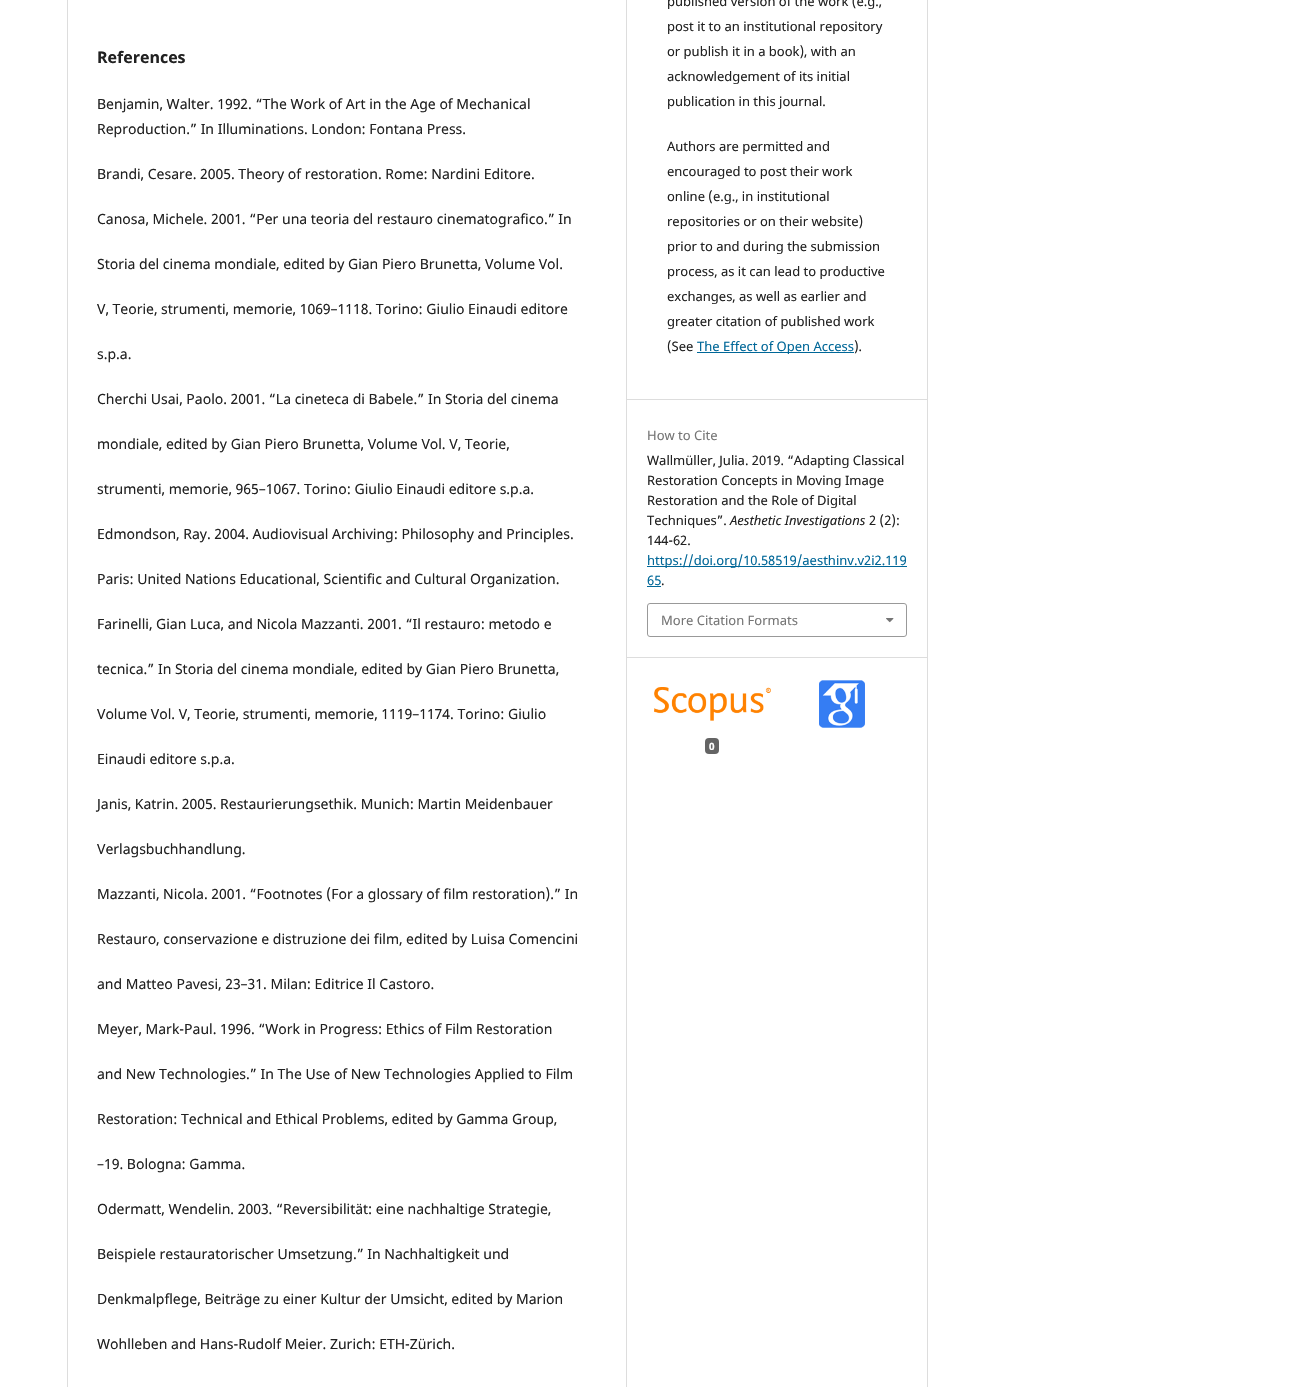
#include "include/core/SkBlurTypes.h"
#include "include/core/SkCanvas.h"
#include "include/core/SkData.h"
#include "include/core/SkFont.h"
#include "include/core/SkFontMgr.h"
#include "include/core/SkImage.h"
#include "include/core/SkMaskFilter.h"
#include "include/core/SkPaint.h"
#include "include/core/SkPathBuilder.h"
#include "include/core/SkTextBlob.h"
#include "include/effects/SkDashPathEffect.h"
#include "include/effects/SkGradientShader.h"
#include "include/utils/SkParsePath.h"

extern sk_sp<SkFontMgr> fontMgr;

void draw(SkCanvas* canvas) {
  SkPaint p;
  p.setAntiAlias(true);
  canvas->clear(SK_ColorWHITE);
  p.setColor(SkColorSetRGB(221, 221, 221));
  canvas->drawRect(SkRect::MakeLTRB(67, 0, 68, 1387), p);
  canvas->drawRect(SkRect::MakeLTRB(626, 0, 627, 1387), p);
  canvas->drawRect(SkRect::MakeLTRB(627, 399, 927, 400), p);
  p.setColor(SkColorSetRGB(0, 103, 152));
  canvas->drawRect(SkRect::MakeLTRB(697, 352, 854, 353), p);
  p.setColor(SkColorSetRGB(221, 221, 221));
  canvas->drawRect(SkRect::MakeLTRB(627, 657, 927, 658), p);
  p.setColor(SkColorSetRGB(0, 103, 152));
  canvas->drawRect(SkRect::MakeLTRB(647, 566, 907, 567), p);
  canvas->drawRect(SkRect::MakeLTRB(647, 586, 661, 587), p);
  p.setStyle(SkPaint::kStroke_Style);
  p.setStrokeWidth(1);
  p.setColor(SkColorSetRGB(153, 153, 153));
  canvas->drawRoundRect(SkRect::MakeLTRB(647.5f, 603.5f, 906.5f, 636.5f), 2.5f, 2.5f, p);
  canvas->drawImageRect(SkImages::DeferredFromEncodedData(SkData::MakeFromFileName("images/1.png")), SkRect::MakeLTRB(886, 618, 894, 623), SkSamplingOptions());
  canvas->drawImageRect(SkImages::DeferredFromEncodedData(SkData::MakeFromFileName("images/2.png")), SkRect::MakeLTRB(819, 680, 865, 728), SkSamplingOptions());
  canvas->drawImageRect(SkImages::DeferredFromEncodedData(SkData::MakeFromFileName("images/3.png")), SkRect::MakeLTRB(654, 687, 771, 721), SkSamplingOptions());
  p.setStyle(SkPaint::kFill_Style);
  p.setColor(SkColorSetRGB(100, 100, 100));
  canvas->drawRoundRect(SkRect::MakeLTRB(705, 738, 719, 754), 4, 4, p);
  p.setColor(SkColorSetRGB(221, 221, 221));
  canvas->drawRect(SkRect::MakeLTRB(927, 0, 928, 1387), p);
  SkFont font1(fontMgr->matchFamilyStyle("Noto Sans", SkFontStyle::Bold()), 16);
  font1.setSubpixel(true);
  p.setColor(SkColorSetRGB(33, 33, 33));
  canvas->drawString("References", 97, 63, font1, p);
  SkFont font2(fontMgr->matchFamilyStyle("Noto Sans", SkFontStyle::Normal()), 14);
  font2.setSubpixel(true);
  canvas->drawString("Benjamin, Walter. 1992. “The Work of Art in the Age of Mechanical", 97, 109, font2, p);
  canvas->drawString("Reproduction.” In Illuminations. London: Fontana Press.", 97, 134, font2, p);
  canvas->drawString("Brandi, Cesare. 2005. Theory of restoration. Rome: Nardini Editore.", 97, 179, font2, p);
  canvas->drawString("Canosa, Michele. 2001. “Per una teoria del restauro cinematografico.” In", 97, 224, font2, p);
  canvas->drawString("Storia del cinema mondiale, edited by Gian Piero Brunetta, Volume Vol.", 97, 269, font2, p);
  canvas->drawString("V, Teorie, strumenti, memorie, 1069–1118. Torino: Giulio Einaudi editore", 97, 314, font2, p);
  canvas->drawString("s.p.a.", 97, 359, font2, p);
  canvas->drawString("Cherchi Usai, Paolo. 2001. “La cineteca di Babele.” In Storia del cinema", 97, 404, font2, p);
  canvas->drawString("mondiale, edited by Gian Piero Brunetta, Volume Vol. V, Teorie,", 97, 449, font2, p);
  canvas->drawString("strumenti, memorie, 965–1067. Torino: Giulio Einaudi editore s.p.a.", 97, 494, font2, p);
  canvas->drawString("Edmondson, Ray. 2004. Audiovisual Archiving: Philosophy and Principles.", 97, 539, font2, p);
  canvas->drawString("Paris: United Nations Educational, Scientific and Cultural Organization.", 97, 584, font2, p);
  canvas->drawString("Farinelli, Gian Luca, and Nicola Mazzanti. 2001. “Il restauro: metodo e", 97, 629, font2, p);
  canvas->drawString("tecnica.” In Storia del cinema mondiale, edited by Gian Piero Brunetta,", 97, 674, font2, p);
  canvas->drawString("Volume Vol. V, Teorie, strumenti, memorie, 1119–1174. Torino: Giulio", 97, 719, font2, p);
  canvas->drawString("Einaudi editore s.p.a.", 97, 764, font2, p);
  canvas->drawString("Janis, Katrin. 2005. Restaurierungsethik. Munich: Martin Meidenbauer", 97, 809, font2, p);
  canvas->drawString("Verlagsbuchhandlung.", 97, 854, font2, p);
  canvas->drawString("Mazzanti, Nicola. 2001. “Footnotes (For a glossary of film restoration).” In", 97, 899, font2, p);
  canvas->drawString("Restauro, conservazione e distruzione dei film, edited by Luisa Comencini", 97, 944, font2, p);
  canvas->drawString("and Matteo Pavesi, 23–31. Milan: Editrice Il Castoro.", 97, 989, font2, p);
  canvas->drawString("Meyer, Mark-Paul. 1996. “Work in Progress: Ethics of Film Restoration", 97, 1034, font2, p);
  canvas->drawString("and New Technologies.” In The Use of New Technologies Applied to Film", 97, 1079, font2, p);
  canvas->drawString("Restoration: Technical and Ethical Problems, edited by Gamma Group,", 97, 1124, font2, p);
  canvas->drawString("–19. Bologna: Gamma.", 97, 1169, font2, p);
  canvas->drawString("Odermatt, Wendelin. 2003. “Reversibilität: eine nachhaltige Strategie,", 97, 1214, font2, p);
  canvas->drawString("Beispiele restauratorischer Umsetzung.” In Nachhaltigkeit und", 97, 1259, font2, p);
  canvas->drawString("Denkmalpflege, Beiträge zu einer Kultur der Umsicht, edited by Marion", 97, 1304, font2, p);
  canvas->drawString("Wohlleben and Hans-Rudolf Meier. Zurich: ETH-Zürich.", 97, 1349, font2, p);
  SkFont font3(fontMgr->matchFamilyStyle("Noto Sans", SkFontStyle::Normal()), 13);
  font3.setSubpixel(true);
  canvas->drawString("published version of the work (e.g.,", 667, 6, font3, p);
  canvas->drawString("post it to an institutional repository", 667, 31, font3, p);
  canvas->drawString("or publish it in a book), with an", 667, 56, font3, p);
  canvas->drawString("acknowledgement of its initial", 667, 81, font3, p);
  canvas->drawString("publication in this journal.", 667, 106, font3, p);
  canvas->drawString("Authors are permitted and", 667, 151, font3, p);
  canvas->drawString("encouraged to post their work", 667, 176, font3, p);
  canvas->drawString("online (e.g., in institutional", 667, 201, font3, p);
  canvas->drawString("repositories or on their website)", 667, 226, font3, p);
  canvas->drawString("prior to and during the submission", 667, 251, font3, p);
  canvas->drawString("process, as it can lead to productive", 667, 276, font3, p);
  canvas->drawString("exchanges, as well as earlier and", 667, 301, font3, p);
  canvas->drawString("greater citation of published work", 667, 326, font3, p);
  canvas->drawString("(See", 667, 351, font3, p);
  p.setColor(SkColorSetRGB(0, 103, 152));
  canvas->drawString("The Effect of Open Access", 697, 351, font3, p);
  p.setColor(SkColorSetRGB(33, 33, 33));
  canvas->drawString(").", 854, 351, font3, p);
  p.setColor(SkColorSetRGB(117, 117, 117));
  canvas->drawString("How to Cite", 647, 440, font3, p);
  p.setColor(SkColorSetRGB(33, 33, 33));
  canvas->drawString("Wallmüller, Julia. 2019. “Adapting Classical", 647, 465, font3, p);
  canvas->drawString("Restoration Concepts in Moving Image", 647, 485, font3, p);
  canvas->drawString("Restoration and the Role of Digital", 647, 505, font3, p);
  canvas->drawString("Techniques”.", 647, 525, font3, p);
  SkFont font4(fontMgr->matchFamilyStyle("Noto Sans", SkFontStyle::Italic()), 13);
  font4.setSubpixel(true);
  canvas->drawString("Aesthetic Investigations", 730, 525, font4, p);
  canvas->drawString("2 (2):", 869, 525, font3, p);
  canvas->drawString("144-62.", 647, 545, font3, p);
  p.setColor(SkColorSetRGB(0, 103, 152));
  canvas->drawString("https://doi.org/10.58519/aesthinv.v2i2.119", 647, 565, font3, p);
  canvas->drawString("65", 647, 585, font3, p);
  p.setColor(SkColorSetRGB(33, 33, 33));
  canvas->drawString(".", 661, 585, font3, p);
  p.setColor(SkColorSetRGB(117, 117, 117));
  canvas->drawString("More Citation Formats", 661, 625, font3, p);
  SkFont font5(fontMgr->matchFamilyStyle("Noto Sans", SkFontStyle::Bold()), 10);
  font5.setSubpixel(true);
  p.setColor(SK_ColorWHITE);
  canvas->drawString("0", 709, 750, font5, p);
}
